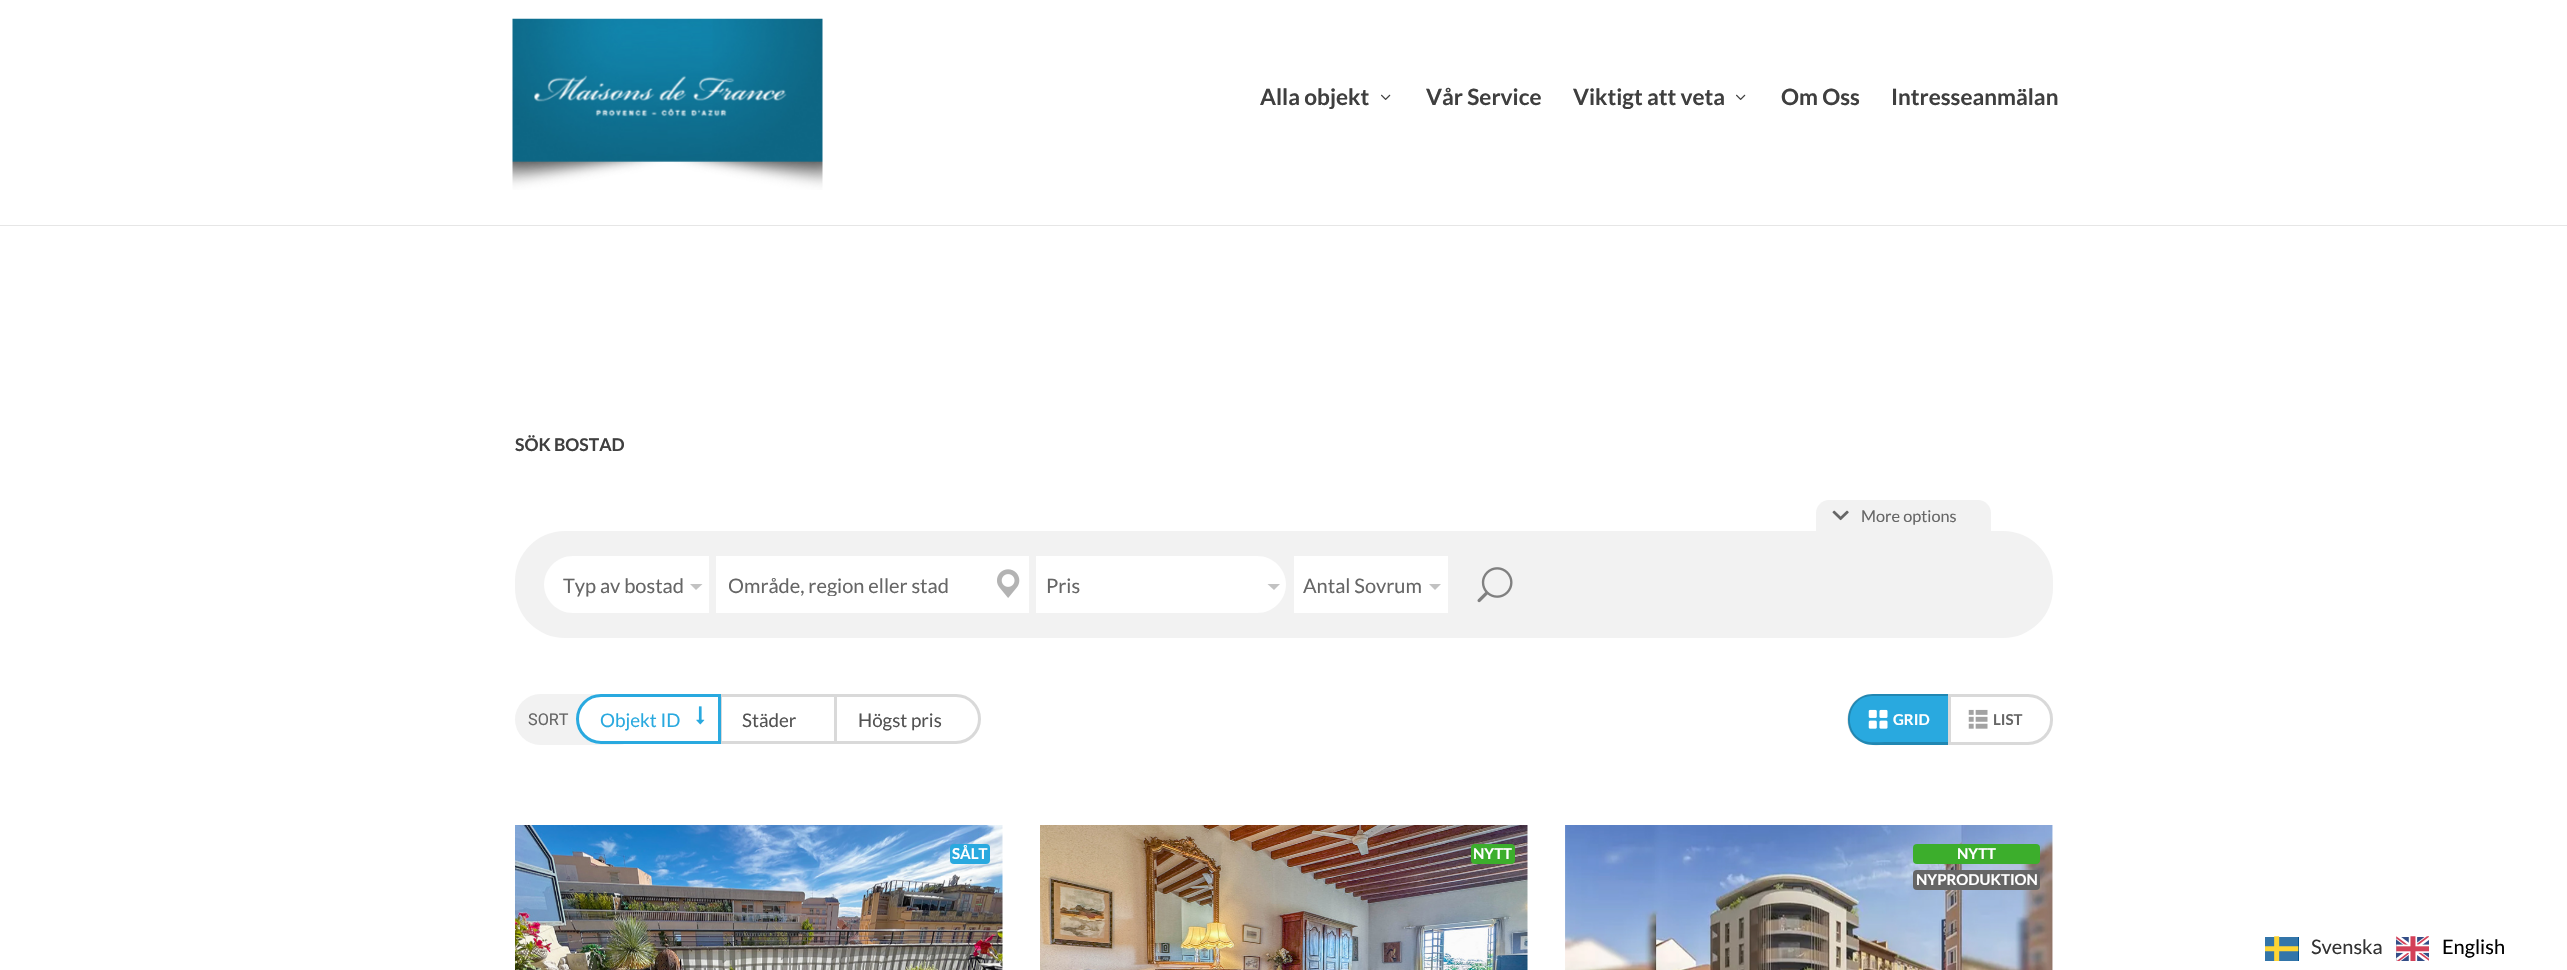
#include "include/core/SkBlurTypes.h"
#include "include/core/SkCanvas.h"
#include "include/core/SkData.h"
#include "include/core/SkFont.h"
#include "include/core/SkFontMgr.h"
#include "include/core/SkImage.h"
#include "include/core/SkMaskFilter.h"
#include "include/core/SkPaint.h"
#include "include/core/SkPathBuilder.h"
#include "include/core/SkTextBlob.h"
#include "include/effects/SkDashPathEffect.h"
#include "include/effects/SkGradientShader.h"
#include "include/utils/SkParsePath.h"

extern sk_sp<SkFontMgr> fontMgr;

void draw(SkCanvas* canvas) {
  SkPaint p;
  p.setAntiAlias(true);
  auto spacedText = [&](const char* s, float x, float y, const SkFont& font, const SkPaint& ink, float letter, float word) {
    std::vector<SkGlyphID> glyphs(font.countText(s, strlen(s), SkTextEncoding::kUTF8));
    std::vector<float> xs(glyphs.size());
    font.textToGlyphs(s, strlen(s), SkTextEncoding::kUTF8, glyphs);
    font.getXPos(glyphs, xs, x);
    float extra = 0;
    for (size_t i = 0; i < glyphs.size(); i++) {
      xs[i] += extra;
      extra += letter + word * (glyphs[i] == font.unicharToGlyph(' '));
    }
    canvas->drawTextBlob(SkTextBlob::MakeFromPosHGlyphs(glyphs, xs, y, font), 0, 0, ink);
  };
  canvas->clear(SK_ColorWHITE);
  p.setColor(SkColorSetRGB(230, 230, 230));
  canvas->drawPath(SkPathBuilder().moveTo(0, 225).lineTo(0, 226).lineTo(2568, 226).lineTo(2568, 1).lineTo(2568, 225).close().detach(), p);
  canvas->drawImageRect(SkImages::DeferredFromEncodedData(SkData::MakeFromFileName("images/1.png")), SkRect::MakeLTRB(512, 18, 823, 190), SkSamplingOptions());
  canvas->drawImageRect(SkImages::DeferredFromEncodedData(SkData::MakeFromFileName("images/2.png")), SkRect::MakeLTRB(1381, 94, 1391, 100), SkSamplingOptions());
  canvas->drawImageRect(SkImages::DeferredFromEncodedData(SkData::MakeFromFileName("images/2.png")), SkRect::MakeLTRB(1736, 94, 1746, 100), SkSamplingOptions());
  p.setColor(SkColorSetRGB(242, 242, 242));
  canvas->drawRoundRect(SkRect::MakeLTRB(515, 531, 2053, 638), 50, 50, p);
  canvas->drawPath(SkPathBuilder().moveTo(1829, 500).lineTo(1978, 500).cubicTo(1985, 500, 1991, 506, 1991, 513).lineTo(1991, 531).lineTo(1816, 531).lineTo(1816, 513).cubicTo(1816, 506, 1822, 500, 1829, 500).close().detach(), p);
  canvas->drawImageRect(SkImages::DeferredFromEncodedData(SkData::MakeFromFileName("images/3.png")), SkRect::MakeLTRB(1832, 510, 1849, 521), SkSamplingOptions());
  p.setColor(SK_ColorWHITE);
  canvas->drawPath(SkPathBuilder().moveTo(572.5f, 556).lineTo(709, 556).lineTo(709, 613).lineTo(572.5f, 613).cubicTo(557, 613, 544, 600, 544, 584.5f).cubicTo(544, 569, 557, 556, 572.5f, 556).close().detach(), p);
  p.setColor(SkColorSetRGB(194, 194, 194));
  canvas->drawPath(SkPathBuilder().moveTo(690, 584).lineTo(702.5f, 584).lineTo(696, 590).close().detach(), p);
  p.setColor(SK_ColorWHITE);
  canvas->drawRect(SkRect::MakeLTRB(716, 556, 1029, 613), p);
  canvas->drawImageRect(SkImages::DeferredFromEncodedData(SkData::MakeFromFileName("images/4.png")), SkRect::MakeLTRB(997, 569, 1020, 598), SkSamplingOptions());
  canvas->drawPath(SkPathBuilder().moveTo(1036, 556).lineTo(1257.5f, 556).cubicTo(1273, 556, 1286, 569, 1286, 584.5f).cubicTo(1286, 600, 1273, 613, 1257.5f, 613).lineTo(1036, 613).close().detach(), p);
  p.setColor(SkColorSetRGB(194, 194, 194));
  canvas->drawPath(SkPathBuilder().moveTo(1267.5f, 584).lineTo(1280, 584).lineTo(1274, 590).close().detach(), p);
  p.setColor(SK_ColorWHITE);
  canvas->drawRect(SkRect::MakeLTRB(1294, 556, 1448, 613), p);
  p.setColor(SkColorSetRGB(194, 194, 194));
  canvas->drawPath(SkPathBuilder().moveTo(1429, 584).lineTo(1441, 584).lineTo(1435, 590).close().detach(), p);
  canvas->drawImageRect(SkImages::DeferredFromEncodedData(SkData::MakeFromFileName("images/5.png")), SkRect::MakeLTRB(1477, 567, 1513, 603), SkSamplingOptions());
  p.setColor(SkColorSetRGB(242, 242, 242));
  canvas->drawRoundRect(SkRect::MakeLTRB(515, 694, 643, 745), 25.5f, 25.5f, p);
  p.setColor(SK_ColorWHITE);
  canvas->drawRoundRect(SkRect::MakeLTRB(576, 694, 981, 744), 25, 25, p);
  p.setColor(SkColorSetRGB(217, 217, 217));
  canvas->drawRect(SkRect::MakeLTRB(719, 694, 834, 697), p);
  canvas->drawRect(SkRect::MakeLTRB(719, 741, 834, 744), p);
  p.setStyle(SkPaint::kStroke_Style);
  p.setStrokeWidth(3);
  p.setColor(SkColorSetRGB(41, 169, 223));
  canvas->drawPath(SkPathBuilder().moveTo(601, 695.5f).lineTo(719.5f, 695.5f).lineTo(719.5f, 742.5f).lineTo(601, 742.5f).cubicTo(588, 742.5f, 577.5f, 732, 577.5f, 719).cubicTo(577.5f, 706, 588, 695.5f, 601, 695.5f).close().detach(), p);
  canvas->drawImageRect(SkImages::DeferredFromEncodedData(SkData::MakeFromFileName("images/6.png")), SkRect::MakeLTRB(696, 706, 705, 725), SkSamplingOptions());
  p.setStyle(SkPaint::kFill_Style);
  p.setColor(SkColorSetRGB(217, 217, 217));
  canvas->drawRect(SkRect::MakeLTRB(721, 694, 722, 744), p);
  p.setStyle(SkPaint::kStroke_Style);
  canvas->drawPath(SkPathBuilder().moveTo(835.5f, 695.5f).lineTo(956, 695.5f).cubicTo(969, 695.5f, 979.5f, 706, 979.5f, 719).cubicTo(979.5f, 732, 969, 742.5f, 956, 742.5f).lineTo(835.5f, 742.5f).close().detach(), p);
  p.setStyle(SkPaint::kFill_Style);
  p.setColor(SkColorSetRGB(41, 169, 223));
  canvas->drawPath(SkPathBuilder().moveTo(1873, 694).lineTo(1948, 694).lineTo(1948, 745).lineTo(1873, 745).cubicTo(1859, 745, 1848, 734, 1848, 720).lineTo(1848, 719).cubicTo(1848, 705, 1859, 694, 1873, 694).close().detach(), p);
  p.setColor(SkColorSetARGB(51, 0, 0, 0));
  canvas->drawPath(SkPathBuilder(SkPathFillType::kEvenOdd).moveTo(1872, 694).lineTo(1948, 694).lineTo(1948, 745).lineTo(1885, 745).cubicTo(1878, 745, 1870, 746, 1863, 743).cubicTo(1838, 733, 1845, 694, 1872, 694).close().moveTo(1872, 696).lineTo(1948, 696).lineTo(1948, 742).lineTo(1885, 742).cubicTo(1878, 742, 1870, 743, 1864, 741).cubicTo(1841, 731, 1848, 696, 1872, 696).close().detach(), p);
  canvas->drawImageRect(SkImages::DeferredFromEncodedData(SkData::MakeFromFileName("images/7.png")), SkRect::MakeLTRB(1868, 709, 1888, 729), SkSamplingOptions());
  p.setStyle(SkPaint::kStroke_Style);
  p.setColor(SkColorSetRGB(217, 217, 217));
  canvas->drawPath(SkPathBuilder().moveTo(1949.5f, 695.5f).lineTo(2028, 695.5f).cubicTo(2041, 695.5f, 2051.5f, 706, 2051.5f, 719).lineTo(2051.5f, 720).cubicTo(2051.5f, 733, 2041, 743.5f, 2028, 743.5f).lineTo(1949.5f, 743.5f).close().detach(), p);
  canvas->drawImageRect(SkImages::DeferredFromEncodedData(SkData::MakeFromFileName("images/8.png")), SkRect::MakeLTRB(1968, 709, 1988, 729), SkSamplingOptions());
  canvas->drawImageRect(SkImages::DeferredFromEncodedData(SkData::MakeFromFileName("images/9.png")), SkRect::MakeLTRB(515, 825, 1003, 970), SkSamplingOptions());
  p.setStyle(SkPaint::kFill_Style);
  p.setColor(SkColorSetRGB(41, 169, 223));
  canvas->drawRoundRect(SkRect::MakeLTRB(950, 844, 990, 864), 4, 4, p);
  canvas->drawImageRect(SkImages::DeferredFromEncodedData(SkData::MakeFromFileName("images/10.png")), SkRect::MakeLTRB(1040, 825, 1528, 970), SkSamplingOptions());
  p.setColor(SkColorSetRGB(60, 174, 44));
  canvas->drawRoundRect(SkRect::MakeLTRB(1471, 844, 1515, 864), 4, 4, p);
  canvas->drawImageRect(SkImages::DeferredFromEncodedData(SkData::MakeFromFileName("images/11.png")), SkRect::MakeLTRB(1565, 825, 2053, 970), SkSamplingOptions());
  canvas->drawRoundRect(SkRect::MakeLTRB(1913, 844, 2040, 864), 4, 4, p);
  p.setColor(SkColorSetRGB(102, 102, 102));
  canvas->drawRoundRect(SkRect::MakeLTRB(1913, 870, 2040, 890), 4, 4, p);
  canvas->drawImageRect(SkImages::DeferredFromEncodedData(SkData::MakeFromFileName("images/12.png")), SkRect::MakeLTRB(2265, 936, 2299, 961), SkSamplingOptions());
  canvas->drawImageRect(SkImages::DeferredFromEncodedData(SkData::MakeFromFileName("images/13.png")), SkRect::MakeLTRB(2396, 936, 2429, 961), SkSamplingOptions());
  SkFont font1(fontMgr->matchFamilyStyle("Lato", SkFontStyle::Bold()), 22.5f);
  font1.setSubpixel(true);
  p.setColor(SkColorSetRGB(63, 63, 63));
  canvas->drawString("Alla objekt", 1260, 105, font1, p);
  canvas->drawString("Vår Service", 1426, 105, font1, p);
  canvas->drawString("Viktigt att veta", 1573, 105, font1, p);
  canvas->drawString("Om Oss", 1781, 105, font1, p);
  canvas->drawString("Intresseanmälan", 1891, 105, font1, p);
  SkFont font2(fontMgr->matchFamilyStyle("Lato", SkFontStyle::Bold()), 17.5f);
  font2.setSubpixel(true);
  canvas->drawString("SÖK BOSTAD", 515, 451, font2, p);
  SkFont font3(fontMgr->matchFamilyStyle("Lato", SkFontStyle::Normal()), 16.25f);
  font3.setSubpixel(true);
  p.setColor(SkColorSetRGB(102, 102, 102));
  canvas->drawString("More options", 1861, 522, font3, p);
  canvas->save();
  canvas->clipRect(SkRect::MakeLTRB(563, 556, 684, 613));
  SkFont font4(fontMgr->matchFamilyStyle("Lato", SkFontStyle::Normal()), 20);
  font4.setSubpixel(true);
  canvas->drawString("Typ av bostad", 563, 593, font4, p);
  canvas->restore();
  canvas->save();
  canvas->clipRect(SkRect::MakeLTRB(729, 573, 979, 596));
  canvas->drawString("Område, region eller stad", 728, 593, font4, p);
  canvas->restore();
  canvas->drawString("Pris", 1046, 593, font4, p);
  canvas->drawString("Antal Sovrum", 1303, 593, font4, p);
  SkFont font5(fontMgr->matchFamilyStyle("Roboto", SkFontStyle::Normal()), 16.25f);
  font5.setSubpixel(true);
  spacedText("SORT", 528, 725, font5, p, 0, 6);
  SkFont font6(fontMgr->matchFamilyStyle("Lato", SkFontStyle::Normal()), 18.75f);
  font6.setSubpixel(true);
  p.setColor(SkColorSetRGB(41, 169, 223));
  canvas->drawString("Objekt ID", 600, 727, font6, p);
  p.setColor(SkColorSetRGB(82, 82, 82));
  canvas->drawString("Städer", 742, 727, font6, p);
  canvas->drawString("Högst pris", 858, 727, font6, p);
  SkFont font7(fontMgr->matchFamilyStyle("Lato", SkFontStyle::Bold()), 15);
  font7.setSubpixel(true);
  p.setColor(SK_ColorWHITE);
  canvas->drawString("GRID", 1893, 725, font7, p);
  p.setColor(SkColorSetRGB(102, 102, 102));
  canvas->drawString("LIST", 1993, 725, font7, p);
  p.setColor(SK_ColorWHITE);
  canvas->drawString("SÅLT", 952, 859, font7, p);
  canvas->drawString("NYTT", 1473, 859, font7, p);
  canvas->drawString("NYTT", 1957, 859, font7, p);
  canvas->drawString("NYPRODUKTION", 1916, 885, font7, p);
  p.setColor(SkColorSetRGB(51, 51, 51));
  canvas->drawString("Svenska", 2311, 954, font4, p);
  p.setColor(SK_ColorBLACK);
  canvas->drawString("English", 2442, 954, font4, p);
}
